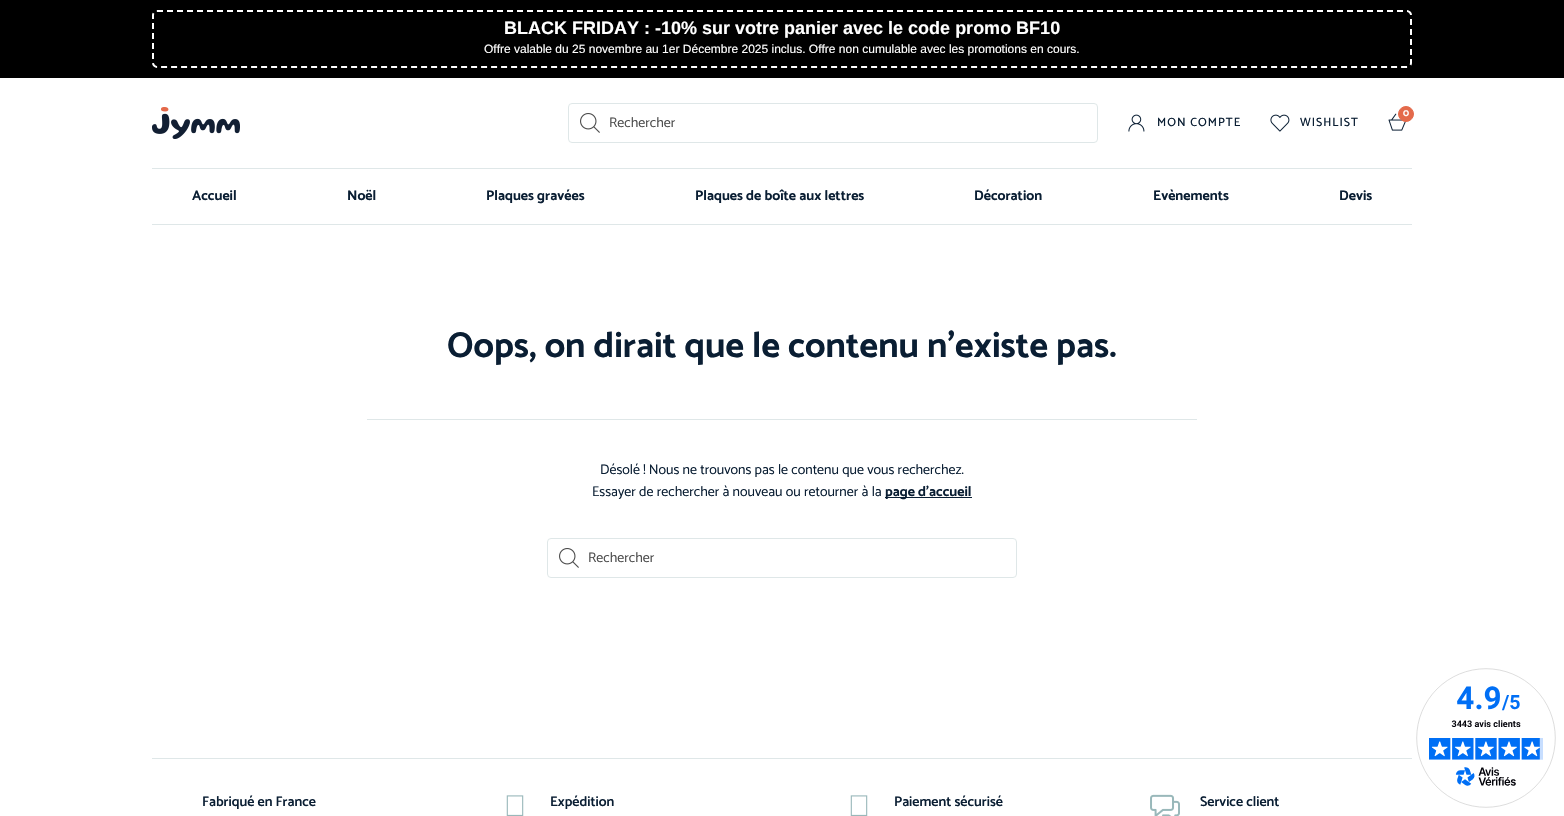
#include "include/core/SkBlurTypes.h"
#include "include/core/SkCanvas.h"
#include "include/core/SkData.h"
#include "include/core/SkFont.h"
#include "include/core/SkFontMgr.h"
#include "include/core/SkImage.h"
#include "include/core/SkMaskFilter.h"
#include "include/core/SkPaint.h"
#include "include/core/SkPathBuilder.h"
#include "include/core/SkTextBlob.h"
#include "include/effects/SkDashPathEffect.h"
#include "include/effects/SkGradientShader.h"
#include "include/utils/SkParsePath.h"

extern sk_sp<SkFontMgr> fontMgr;

void draw(SkCanvas* canvas) {
  SkPaint p;
  p.setAntiAlias(true);
  auto spacedText = [&](const char* s, float x, float y, const SkFont& font, const SkPaint& ink, float letter, float word) {
    std::vector<SkGlyphID> glyphs(font.countText(s, strlen(s), SkTextEncoding::kUTF8));
    std::vector<float> xs(glyphs.size());
    font.textToGlyphs(s, strlen(s), SkTextEncoding::kUTF8, glyphs);
    font.getXPos(glyphs, xs, x);
    float extra = 0;
    for (size_t i = 0; i < glyphs.size(); i++) {
      xs[i] += extra;
      extra += letter + word * (glyphs[i] == font.unicharToGlyph(' '));
    }
    canvas->drawTextBlob(SkTextBlob::MakeFromPosHGlyphs(glyphs, xs, y, font), 0, 0, ink);
  };
  canvas->clear(SK_ColorWHITE);
  p.setColor(SK_ColorBLACK);
  canvas->drawRect(SkRect::MakeLTRB(0, 0, 1564, 78), p);
  p.setStyle(SkPaint::kStroke_Style);
  p.setStrokeWidth(2);
  p.setColor(SK_ColorWHITE);
  p.setPathEffect(SkDashPathEffect::Make({{6, 4}}, 0));
  canvas->drawPath(SkPathBuilder().moveTo(157, 11).lineTo(1407, 11).cubicTo(1409, 11, 1411, 13, 1411, 15).lineTo(1411, 63).cubicTo(1411, 65, 1409, 67, 1407, 67).lineTo(157, 67).cubicTo(155, 67, 153, 65, 153, 63).lineTo(153, 15).cubicTo(153, 13, 155, 11, 157, 11).close().detach(), p);
  p.setPathEffect(nullptr);
  canvas->drawImageRect(SkImages::DeferredFromEncodedData(SkData::MakeFromFileName("images/1.png")), SkRect::MakeLTRB(152, 107, 240, 139), SkSamplingOptions());
  canvas->drawImageRect(SkImages::DeferredFromEncodedData(SkData::MakeFromFileName("images/2.png")), SkRect::MakeLTRB(1388, 113, 1406, 131), SkSamplingOptions());
  p.setStyle(SkPaint::kFill_Style);
  p.setColor(SkColorSetRGB(228, 106, 75));
  canvas->drawCircle(1406, 114, 7.5f, p);
  p.setStyle(SkPaint::kStroke_Style);
  p.setStrokeWidth(1);
  canvas->drawCircle(1406, 114, 7.5f, p);
  p.setColor(SkColorSetRGB(223, 231, 232));
  canvas->drawRoundRect(SkRect::MakeLTRB(568.5f, 103.5f, 1097.5f, 142.5f), 3.5f, 3.5f, p);
  canvas->drawImageRect(SkImages::DeferredFromEncodedData(SkData::MakeFromFileName("images/3.png")), SkRect::MakeLTRB(580, 113, 600, 133), SkSamplingOptions());
  canvas->drawImageRect(SkImages::DeferredFromEncodedData(SkData::MakeFromFileName("images/4.png")), SkRect::MakeLTRB(1128, 114, 1145, 132), SkSamplingOptions());
  canvas->drawImageRect(SkImages::DeferredFromEncodedData(SkData::MakeFromFileName("images/5.png")), SkRect::MakeLTRB(1270, 114, 1290, 132), SkSamplingOptions());
  p.setStyle(SkPaint::kFill_Style);
  canvas->drawRect(SkRect::MakeLTRB(152, 168, 1412, 169), p);
  canvas->drawRect(SkRect::MakeLTRB(152, 224, 1412, 225), p);
  canvas->drawRect(SkRect::MakeLTRB(367, 419, 1197, 420), p);
  p.setColor(SkColorSetRGB(10, 30, 51));
  canvas->drawRect(SkRect::MakeLTRB(885, 497, 972, 498), p);
  p.setStyle(SkPaint::kStroke_Style);
  p.setColor(SkColorSetRGB(223, 231, 232));
  canvas->drawRoundRect(SkRect::MakeLTRB(547.5f, 538.5f, 1016.5f, 577.5f), 3.5f, 3.5f, p);
  canvas->drawImageRect(SkImages::DeferredFromEncodedData(SkData::MakeFromFileName("images/3.png")), SkRect::MakeLTRB(559, 548, 579, 568), SkSamplingOptions());
  p.setStyle(SkPaint::kFill_Style);
  canvas->drawRect(SkRect::MakeLTRB(152, 758, 1412, 759), p);
  canvas->drawImageRect(SkImages::DeferredFromEncodedData(SkData::MakeFromFileName("images/6.png")), SkRect::MakeLTRB(506, 795, 524, 816), SkSamplingOptions());
  canvas->drawImageRect(SkImages::DeferredFromEncodedData(SkData::MakeFromFileName("images/6.png")), SkRect::MakeLTRB(850, 795, 868, 816), SkSamplingOptions());
  canvas->drawImageRect(SkImages::DeferredFromEncodedData(SkData::MakeFromFileName("images/7.png")), SkRect::MakeLTRB(1150, 794, 1180, 816), SkSamplingOptions());
  canvas->drawImageRect(SkImages::DeferredFromEncodedData(SkData::MakeFromFileName("images/8.png")), SkRect::MakeLTRB(1416, 668, 1556, 808), SkSamplingOptions());
  SkFont font1(fontMgr->matchFamilyStyle("Liberation Sans", SkFontStyle::Bold()), 18);
  font1.setSubpixel(true);
  p.setColor(SK_ColorWHITE);
  canvas->drawString("BLACK FRIDAY : -10% sur votre panier avec le code promo BF10", 504, 34, font1, p);
  SkFont font2(fontMgr->matchFamilyStyle("Liberation Sans", SkFontStyle::Normal()), 12);
  font2.setSubpixel(true);
  canvas->drawString("Offre valable du 25 novembre au 1er Décembre 2025 inclus. Offre non cumulable avec les promotions en cours.", 484, 53, font2, p);
  SkFont font3(fontMgr->matchFamilyStyle("Catamaran", SkFontStyle::Bold()), 10);
  font3.setSubpixel(true);
  canvas->drawString("0", 1403, 116, font3, p);
  SkFont font4(fontMgr->matchFamilyStyle("Catamaran", SkFontStyle::Normal()), 14);
  font4.setSubpixel(true);
  p.setColor(SkColorSetRGB(77, 77, 77));
  canvas->drawString("Rechercher", 609, 127, font4, p);
  SkFont font5(fontMgr->matchFamilyStyle("Catamaran", SkFontStyle(500, SkFontStyle::kNormal_Width, SkFontStyle::kUpright_Slant)), 12);
  font5.setSubpixel(true);
  p.setColor(SkColorSetRGB(10, 30, 51));
  spacedText("MON COMPTE", 1157, 126, font5, p, 1, 0);
  spacedText("WISHLIST", 1300, 126, font5, p, 1, 0);
  SkFont font6(fontMgr->matchFamilyStyle("Catamaran", SkFontStyle::Bold()), 14);
  font6.setSubpixel(true);
  canvas->drawString("Accueil", 192, 200, font6, p);
  canvas->drawString("Noël", 347, 200, font6, p);
  canvas->drawString("Plaques gravées", 486, 200, font6, p);
  canvas->drawString("Plaques de boîte aux lettres", 695, 200, font6, p);
  canvas->drawString("Décoration", 974, 200, font6, p);
  canvas->drawString("Evènements", 1153, 200, font6, p);
  canvas->drawString("Devis", 1339, 200, font6, p);
  SkFont font7(fontMgr->matchFamilyStyle("Catamaran", SkFontStyle::Bold()), 36);
  font7.setSubpixel(true);
  canvas->drawString("Oops, on dirait que le contenu n'existe pas.", 447, 357, font7, p);
  canvas->drawString("Désolé ! Nous ne trouvons pas le contenu que vous recherchez.", 600, 474, font4, p);
  canvas->drawString("Essayer de rechercher à nouveau ou retourner à la", 592, 496, font4, p);
  canvas->drawString("page d’accueil", 885, 496, font6, p);
  p.setColor(SkColorSetRGB(77, 77, 77));
  canvas->drawString("Rechercher", 588, 562, font4, p);
  SkFont font8(fontMgr->matchFamilyStyle("Catamaran", SkFontStyle(600, SkFontStyle::kNormal_Width, SkFontStyle::kUpright_Slant)), 14);
  font8.setSubpixel(true);
  p.setColor(SkColorSetRGB(10, 30, 51));
  canvas->drawString("Fabriqué en France", 202, 806, font8, p);
  canvas->drawString("Expédition", 550, 806, font8, p);
  canvas->drawString("Paiement sécurisé", 894, 806, font8, p);
  canvas->drawString("Service client", 1200, 806, font8, p);
}
